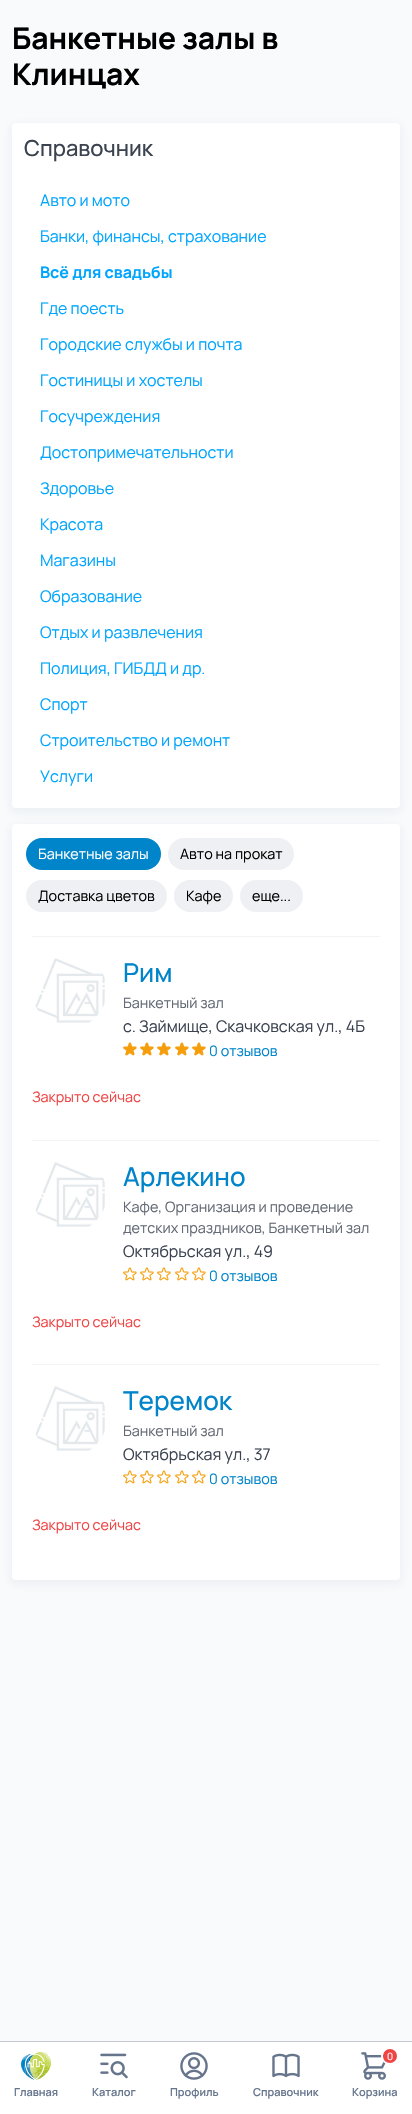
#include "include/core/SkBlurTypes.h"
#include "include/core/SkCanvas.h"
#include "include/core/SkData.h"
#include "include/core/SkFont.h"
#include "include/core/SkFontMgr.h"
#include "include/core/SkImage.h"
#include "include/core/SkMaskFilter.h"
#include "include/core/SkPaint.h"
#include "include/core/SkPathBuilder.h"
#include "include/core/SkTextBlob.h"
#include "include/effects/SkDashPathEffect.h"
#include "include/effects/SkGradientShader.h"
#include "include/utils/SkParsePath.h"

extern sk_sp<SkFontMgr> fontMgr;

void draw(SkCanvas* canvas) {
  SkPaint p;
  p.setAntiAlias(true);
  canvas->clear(SkColorSetRGB(248, 250, 252));
  p.setColor(SkColorSetARGB(13, 34, 60, 80));
  p.setMaskFilter(SkMaskFilter::MakeBlur(kNormal_SkBlurStyle, 5));
  canvas->drawRoundRect(SkRect::MakeLTRB(10, 124, 402, 813), 6, 6, p);
  p.setMaskFilter(nullptr);
  p.setColor(SK_ColorWHITE);
  canvas->drawRoundRect(SkRect::MakeLTRB(12, 123, 400, 808), 4, 4, p);
  p.setColor(SkColorSetARGB(13, 34, 60, 80));
  p.setMaskFilter(SkMaskFilter::MakeBlur(kNormal_SkBlurStyle, 5));
  canvas->drawRoundRect(SkRect::MakeLTRB(10, 825, 402, 1585), 6, 6, p);
  p.setMaskFilter(nullptr);
  p.setColor(SK_ColorWHITE);
  canvas->drawRoundRect(SkRect::MakeLTRB(12, 824, 400, 1580), 4, 4, p);
  p.setColor(SkColorSetRGB(0, 132, 202));
  canvas->drawRoundRect(SkRect::MakeLTRB(26, 838, 161, 870), 16, 16, p);
  p.setColor(SkColorSetRGB(238, 240, 243));
  canvas->drawRoundRect(SkRect::MakeLTRB(168, 838, 294, 870), 16, 16, p);
  canvas->drawRoundRect(SkRect::MakeLTRB(26, 880, 167, 912), 16, 16, p);
  canvas->drawRoundRect(SkRect::MakeLTRB(174, 880, 233, 912), 16, 16, p);
  canvas->drawRoundRect(SkRect::MakeLTRB(240, 880, 303, 912), 16, 16, p);
  p.setColor(SkColorSetRGB(241, 243, 245));
  canvas->drawRect(SkRect::MakeLTRB(32, 936, 380, 937), p);
  canvas->drawImageRect(SkImages::DeferredFromEncodedData(SkData::MakeFromFileName("images/1.png")), SkRect::MakeLTRB(35, 958, 105, 1023), SkSamplingOptions());
  canvas->drawImageRect(SkImages::DeferredFromEncodedData(SkData::MakeFromFileName("images/2.png")), SkRect::MakeLTRB(123, 1042, 137, 1056), SkSamplingOptions());
  canvas->drawImageRect(SkImages::DeferredFromEncodedData(SkData::MakeFromFileName("images/2.png")), SkRect::MakeLTRB(140, 1042, 154, 1056), SkSamplingOptions());
  canvas->drawImageRect(SkImages::DeferredFromEncodedData(SkData::MakeFromFileName("images/2.png")), SkRect::MakeLTRB(157, 1042, 171, 1056), SkSamplingOptions());
  canvas->drawImageRect(SkImages::DeferredFromEncodedData(SkData::MakeFromFileName("images/2.png")), SkRect::MakeLTRB(175, 1042, 189, 1056), SkSamplingOptions());
  canvas->drawImageRect(SkImages::DeferredFromEncodedData(SkData::MakeFromFileName("images/2.png")), SkRect::MakeLTRB(192, 1042, 206, 1056), SkSamplingOptions());
  canvas->drawRect(SkRect::MakeLTRB(32, 1140, 380, 1141), p);
  canvas->drawImageRect(SkImages::DeferredFromEncodedData(SkData::MakeFromFileName("images/3.png")), SkRect::MakeLTRB(35, 1162, 105, 1227), SkSamplingOptions());
  canvas->drawImageRect(SkImages::DeferredFromEncodedData(SkData::MakeFromFileName("images/4.png")), SkRect::MakeLTRB(123, 1267, 137, 1281), SkSamplingOptions());
  canvas->drawImageRect(SkImages::DeferredFromEncodedData(SkData::MakeFromFileName("images/4.png")), SkRect::MakeLTRB(140, 1267, 154, 1281), SkSamplingOptions());
  canvas->drawImageRect(SkImages::DeferredFromEncodedData(SkData::MakeFromFileName("images/4.png")), SkRect::MakeLTRB(157, 1267, 171, 1281), SkSamplingOptions());
  canvas->drawImageRect(SkImages::DeferredFromEncodedData(SkData::MakeFromFileName("images/4.png")), SkRect::MakeLTRB(175, 1267, 189, 1281), SkSamplingOptions());
  canvas->drawImageRect(SkImages::DeferredFromEncodedData(SkData::MakeFromFileName("images/4.png")), SkRect::MakeLTRB(192, 1267, 206, 1281), SkSamplingOptions());
  canvas->drawRect(SkRect::MakeLTRB(32, 1364, 380, 1365), p);
  canvas->drawImageRect(SkImages::DeferredFromEncodedData(SkData::MakeFromFileName("images/3.png")), SkRect::MakeLTRB(35, 1386, 105, 1451), SkSamplingOptions());
  canvas->drawImageRect(SkImages::DeferredFromEncodedData(SkData::MakeFromFileName("images/4.png")), SkRect::MakeLTRB(123, 1470, 137, 1484), SkSamplingOptions());
  canvas->drawImageRect(SkImages::DeferredFromEncodedData(SkData::MakeFromFileName("images/4.png")), SkRect::MakeLTRB(140, 1470, 154, 1484), SkSamplingOptions());
  canvas->drawImageRect(SkImages::DeferredFromEncodedData(SkData::MakeFromFileName("images/4.png")), SkRect::MakeLTRB(157, 1470, 171, 1484), SkSamplingOptions());
  canvas->drawImageRect(SkImages::DeferredFromEncodedData(SkData::MakeFromFileName("images/4.png")), SkRect::MakeLTRB(175, 1470, 189, 1484), SkSamplingOptions());
  canvas->drawImageRect(SkImages::DeferredFromEncodedData(SkData::MakeFromFileName("images/4.png")), SkRect::MakeLTRB(192, 1470, 206, 1484), SkSamplingOptions());
  p.setColor(SK_ColorWHITE);
  canvas->drawRect(SkRect::MakeLTRB(0, 2042, 412, 2114), p);
  p.setColor(SkColorSetRGB(197, 202, 208));
  canvas->drawRect(SkRect::MakeLTRB(0, 2041, 412, 2042), p);
  canvas->drawImageRect(SkImages::DeferredFromEncodedData(SkData::MakeFromFileName("images/5.png")), SkRect::MakeLTRB(21, 2052, 51, 2080), SkSamplingOptions());
  canvas->drawImageRect(SkImages::DeferredFromEncodedData(SkData::MakeFromFileName("images/6.png")), SkRect::MakeLTRB(100, 2053, 128, 2079), SkSamplingOptions());
  canvas->drawImageRect(SkImages::DeferredFromEncodedData(SkData::MakeFromFileName("images/7.png")), SkRect::MakeLTRB(180, 2052, 208, 2080), SkSamplingOptions());
  canvas->drawImageRect(SkImages::DeferredFromEncodedData(SkData::MakeFromFileName("images/8.png")), SkRect::MakeLTRB(272, 2053, 300, 2078), SkSamplingOptions());
  canvas->drawImageRect(SkImages::DeferredFromEncodedData(SkData::MakeFromFileName("images/9.png")), SkRect::MakeLTRB(361, 2052, 387, 2080), SkSamplingOptions());
  p.setStyle(SkPaint::kStroke_Style);
  p.setStrokeWidth(2);
  p.setColor(SK_ColorWHITE);
  canvas->drawCircle(390, 2056, 8, p);
  p.setStyle(SkPaint::kFill_Style);
  p.setColor(SkColorSetRGB(239, 68, 68));
  canvas->drawCircle(390, 2056, 7, p);
  SkFont font1(fontMgr->matchFamilyStyle("Manrope", SkFontStyle::Bold()), 30);
  font1.setSubpixel(true);
  p.setColor(SK_ColorBLACK);
  canvas->drawString("Банкетные залы в", 12, 49, font1, p);
  canvas->drawString("Клинцах", 12, 85, font1, p);
  SkFont font2(fontMgr->matchFamilyStyle("Manrope", SkFontStyle(500, SkFontStyle::kNormal_Width, SkFontStyle::kUpright_Slant)), 22);
  font2.setSubpixel(true);
  p.setColor(SkColorSetRGB(59, 67, 81));
  canvas->drawString("Справочник", 24, 156, font2, p);
  SkFont font3(fontMgr->matchFamilyStyle("Manrope", SkFontStyle::Normal()), 16);
  font3.setSubpixel(true);
  p.setColor(SkColorSetRGB(0, 165, 253));
  canvas->drawString("Авто и мото", 40, 206, font3, p);
  canvas->drawString("Банки, финансы, страхование", 40, 242, font3, p);
  SkFont font4(fontMgr->matchFamilyStyle("Manrope", SkFontStyle::Bold()), 16);
  font4.setSubpixel(true);
  canvas->drawString("Всё для свадьбы", 40, 278, font4, p);
  canvas->drawString("Где поесть", 40, 314, font3, p);
  canvas->drawString("Городские службы и почта", 40, 350, font3, p);
  canvas->drawString("Гостиницы и хостелы", 40, 386, font3, p);
  canvas->drawString("Госучреждения", 40, 422, font3, p);
  canvas->drawString("Достопримечательности", 40, 458, font3, p);
  canvas->drawString("Здоровье", 40, 494, font3, p);
  canvas->drawString("Красота", 40, 530, font3, p);
  canvas->drawString("Магазины", 40, 566, font3, p);
  canvas->drawString("Образование", 40, 602, font3, p);
  canvas->drawString("Отдых и развлечения", 40, 638, font3, p);
  canvas->drawString("Полиция, ГИБДД и др.", 40, 674, font3, p);
  canvas->drawString("Спорт", 40, 710, font3, p);
  canvas->drawString("Строительство и ремонт", 40, 746, font3, p);
  canvas->drawString("Услуги", 40, 782, font3, p);
  SkFont font5(fontMgr->matchFamilyStyle("Manrope", SkFontStyle::Normal()), 14.4f);
  font5.setSubpixel(true);
  p.setColor(SK_ColorWHITE);
  canvas->drawString("Банкетные залы", 38, 859, font5, p);
  p.setColor(SK_ColorBLACK);
  canvas->drawString("Авто на прокат", 180, 859, font5, p);
  canvas->drawString("Доставка цветов", 38, 901, font5, p);
  canvas->drawString("Кафе", 186, 901, font5, p);
  canvas->drawString("еще...", 252, 901, font5, p);
  SkFont font6(fontMgr->matchFamilyStyle("Manrope", SkFontStyle(500, SkFontStyle::kNormal_Width, SkFontStyle::kUpright_Slant)), 26);
  font6.setSubpixel(true);
  p.setColor(SkColorSetRGB(0, 132, 202));
  canvas->drawString("Рим", 123, 982, font6, p);
  p.setColor(SkColorSetRGB(98, 105, 116));
  canvas->drawString("Банкетный зал", 123, 1008, font5, p);
  p.setColor(SkColorSetRGB(59, 67, 81));
  canvas->drawString("с. Займище, Скачковская ул., 4Б", 123, 1032, font3, p);
  p.setColor(SkColorSetRGB(0, 132, 202));
  canvas->drawString("0 отзывов", 209, 1056, font5, p);
  p.setColor(SkColorSetRGB(239, 68, 68));
  canvas->drawString("Закрыто сейчас", 32, 1102, font5, p);
  p.setColor(SkColorSetRGB(0, 132, 202));
  canvas->drawString("Арлекино", 123, 1186, font6, p);
  p.setColor(SkColorSetRGB(98, 105, 116));
  canvas->drawString("Кафе, Организация и проведение", 123, 1212, font5, p);
  canvas->drawString("детских праздников, Банкетный зал", 123, 1233, font5, p);
  p.setColor(SkColorSetRGB(59, 67, 81));
  canvas->drawString("Октябрьская ул., 49", 123, 1257, font3, p);
  p.setColor(SkColorSetRGB(0, 132, 202));
  canvas->drawString("0 отзывов", 209, 1281, font5, p);
  p.setColor(SkColorSetRGB(239, 68, 68));
  canvas->drawString("Закрыто сейчас", 32, 1327, font5, p);
  p.setColor(SkColorSetRGB(0, 132, 202));
  canvas->drawString("Теремок", 123, 1410, font6, p);
  p.setColor(SkColorSetRGB(98, 105, 116));
  canvas->drawString("Банкетный зал", 123, 1436, font5, p);
  p.setColor(SkColorSetRGB(59, 67, 81));
  canvas->drawString("Октябрьская ул., 37", 123, 1460, font3, p);
  p.setColor(SkColorSetRGB(0, 132, 202));
  canvas->drawString("0 отзывов", 209, 1484, font5, p);
  p.setColor(SkColorSetRGB(239, 68, 68));
  canvas->drawString("Закрыто сейчас", 32, 1530, font5, p);
  SkFont font7(fontMgr->matchFamilyStyle("Manrope", SkFontStyle(600, SkFontStyle::kNormal_Width, SkFontStyle::kUpright_Slant)), 11);
  font7.setSubpixel(true);
  p.setColor(SkColorSetRGB(102, 117, 140));
  canvas->drawString("Главная", 14, 2096, font7, p);
  canvas->drawString("Каталог", 92, 2096, font7, p);
  canvas->drawString("Профиль", 170, 2096, font7, p);
  canvas->drawString("Справочник", 253, 2096, font7, p);
  SkFont font8(fontMgr->matchFamilyStyle("Manrope", SkFontStyle::Normal()), 10);
  font8.setSubpixel(true);
  p.setColor(SK_ColorWHITE);
  canvas->drawString("0", 387, 2060, font8, p);
  p.setColor(SkColorSetRGB(102, 117, 140));
  canvas->drawString("Корзина", 352, 2096, font7, p);
}
